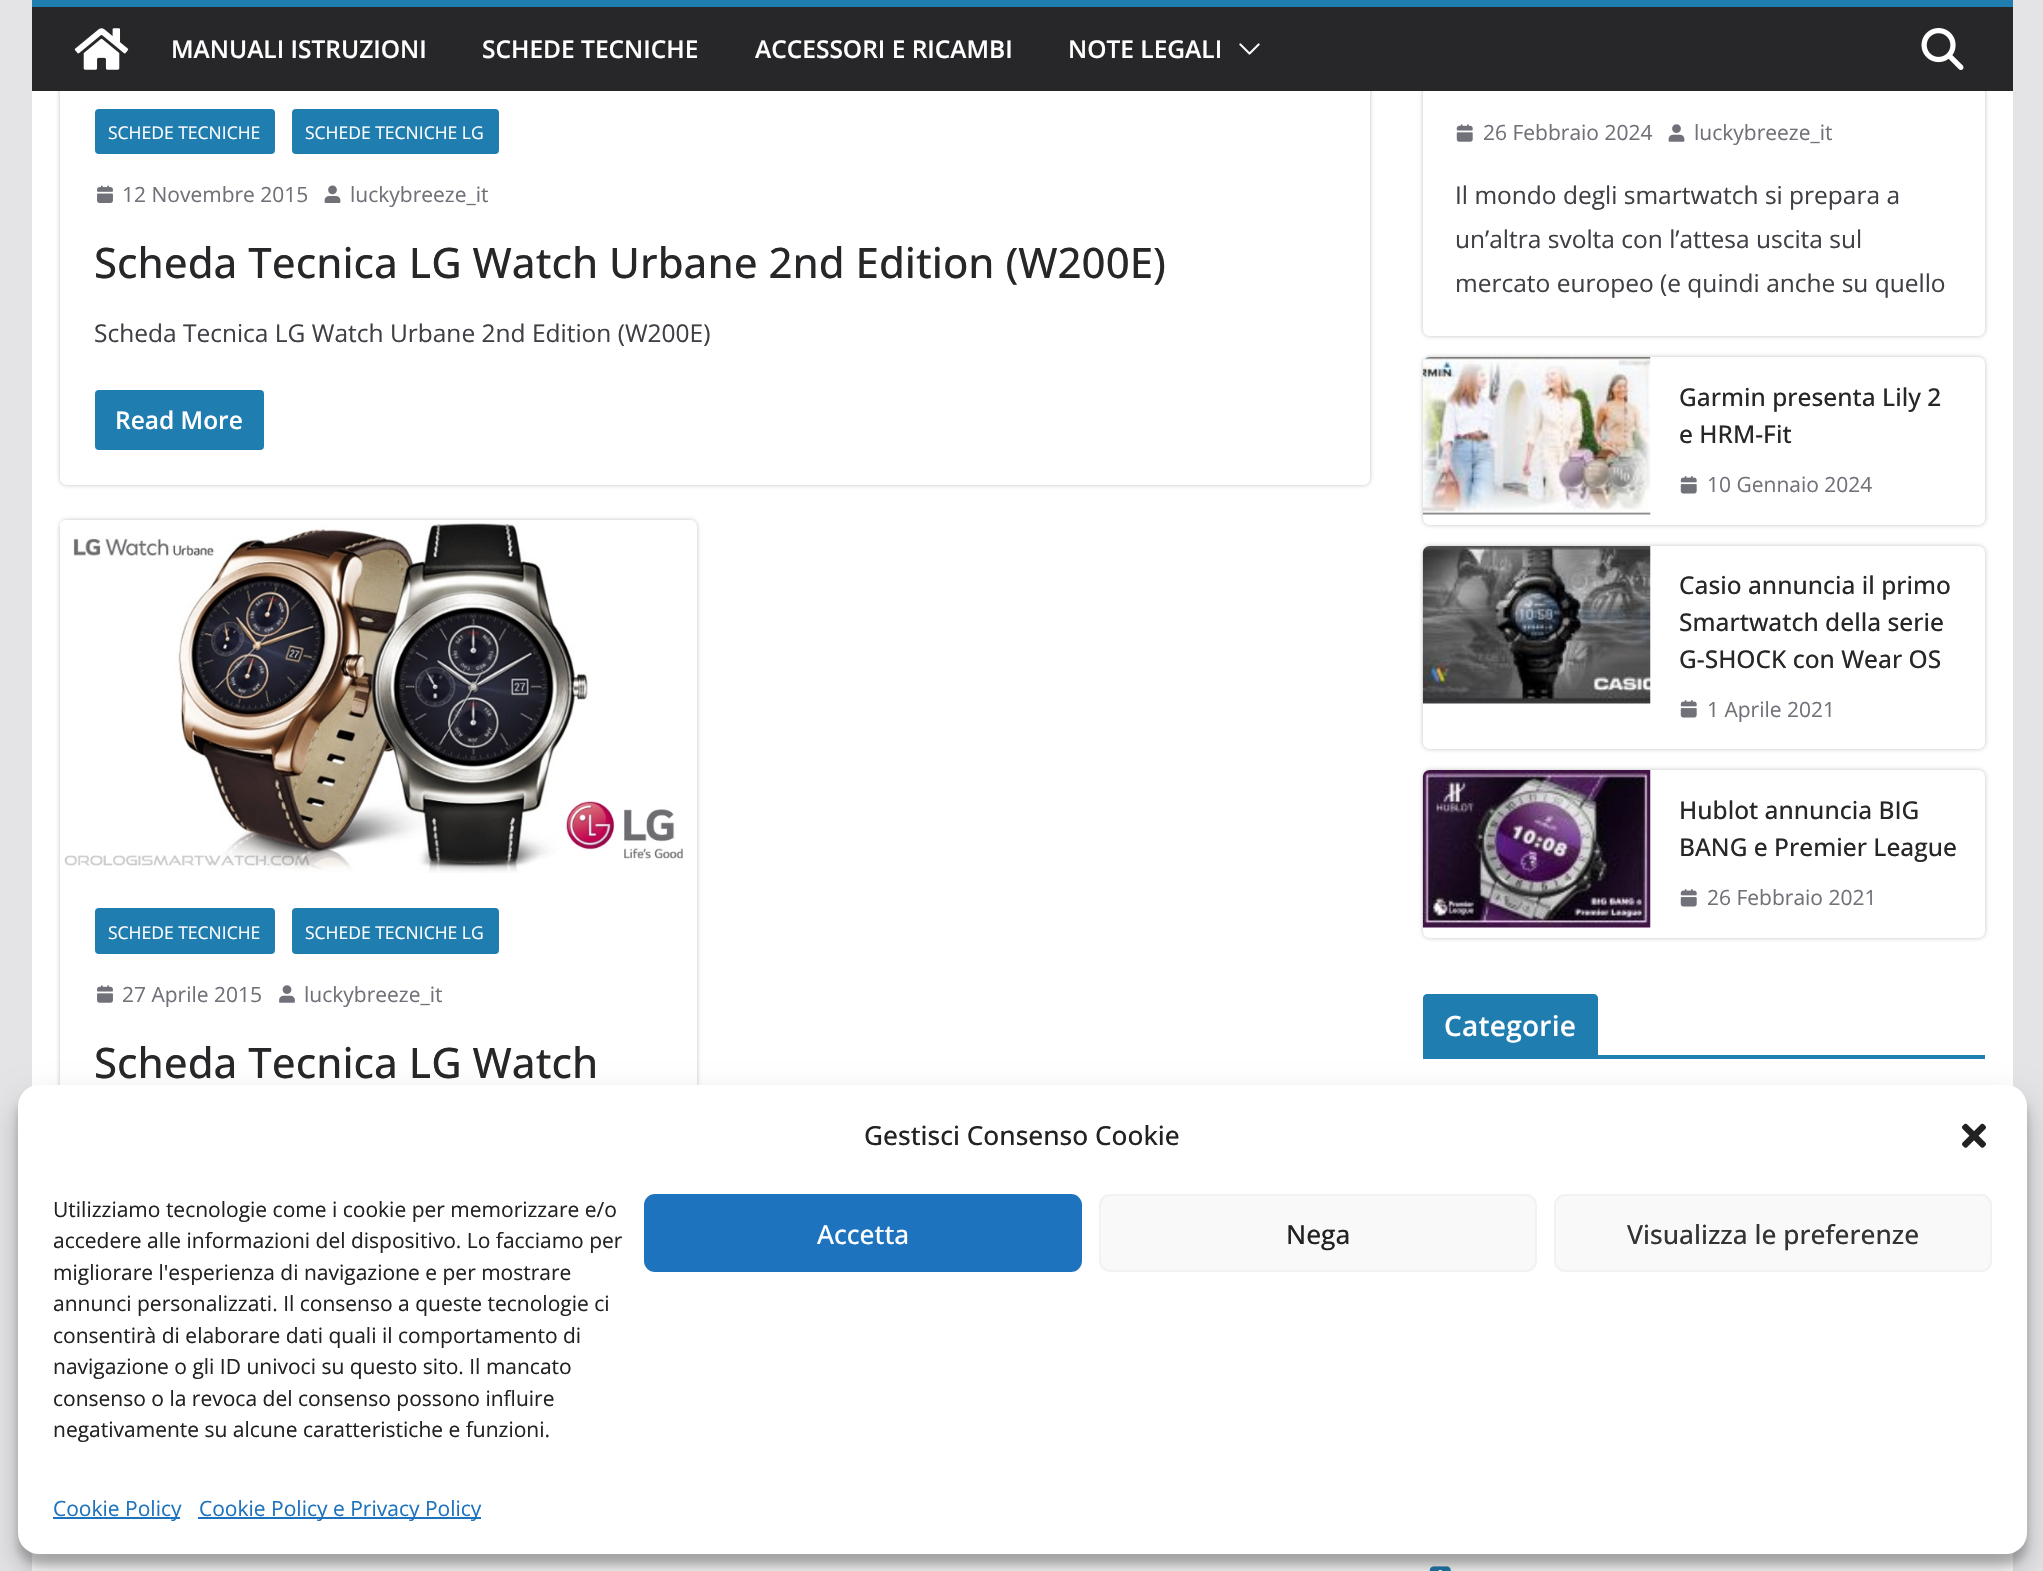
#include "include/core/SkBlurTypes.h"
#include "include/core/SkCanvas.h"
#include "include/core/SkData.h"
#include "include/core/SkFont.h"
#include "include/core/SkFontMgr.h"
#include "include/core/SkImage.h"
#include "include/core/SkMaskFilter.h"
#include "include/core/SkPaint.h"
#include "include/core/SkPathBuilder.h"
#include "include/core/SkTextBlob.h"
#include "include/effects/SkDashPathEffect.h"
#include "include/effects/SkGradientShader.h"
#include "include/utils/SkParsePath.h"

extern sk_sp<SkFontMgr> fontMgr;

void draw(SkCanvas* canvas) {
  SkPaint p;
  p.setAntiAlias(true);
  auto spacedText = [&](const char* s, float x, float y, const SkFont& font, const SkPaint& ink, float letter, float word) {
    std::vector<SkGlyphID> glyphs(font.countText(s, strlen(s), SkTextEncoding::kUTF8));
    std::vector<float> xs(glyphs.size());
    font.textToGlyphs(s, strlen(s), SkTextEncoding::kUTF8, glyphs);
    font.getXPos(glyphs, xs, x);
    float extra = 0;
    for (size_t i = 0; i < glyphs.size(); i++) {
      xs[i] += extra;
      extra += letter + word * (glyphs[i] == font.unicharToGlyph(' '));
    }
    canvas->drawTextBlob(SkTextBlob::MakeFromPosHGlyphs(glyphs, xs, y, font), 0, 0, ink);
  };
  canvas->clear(SkColorSetRGB(228, 228, 231));
  p.setColor(SK_ColorWHITE);
  canvas->drawRect(SkRect::MakeLTRB(32, 91, 2013, 1571), p);
  canvas->save();
  canvas->clipPath(SkPathBuilder(SkPathFillType::kEvenOdd).moveTo(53, 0).lineTo(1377, 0).lineTo(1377, 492).lineTo(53, 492).close().moveTo(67, -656).lineTo(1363, -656).cubicTo(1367, -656, 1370, -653, 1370, -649).lineTo(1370, 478).cubicTo(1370, 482, 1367, 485, 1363, 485).lineTo(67, 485).cubicTo(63, 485, 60, 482, 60, 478).lineTo(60, -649).cubicTo(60, -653, 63, -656, 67, -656).close().detach(), true);
  p.setColor(SkColorSetARGB(61, 0, 0, 0));
  p.setMaskFilter(SkMaskFilter::MakeBlur(kNormal_SkBlurStyle, 2));
  canvas->drawRoundRect(SkRect::MakeLTRB(60, -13, 1370, 485), 7, 7, p);
  p.setMaskFilter(nullptr);
  canvas->restore();
  canvas->save();
  canvas->clipPath(SkPathBuilder(SkPathFillType::kEvenOdd).moveTo(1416, 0).lineTo(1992, 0).lineTo(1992, 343).lineTo(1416, 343).close().moveTo(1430, -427).lineTo(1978, -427).cubicTo(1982, -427, 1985, -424, 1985, -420).lineTo(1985, 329).cubicTo(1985, 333, 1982, 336, 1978, 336).lineTo(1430, 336).cubicTo(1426, 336, 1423, 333, 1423, 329).lineTo(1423, -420).cubicTo(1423, -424, 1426, -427, 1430, -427).close().detach(), true);
  p.setMaskFilter(SkMaskFilter::MakeBlur(kNormal_SkBlurStyle, 2));
  canvas->drawRoundRect(SkRect::MakeLTRB(1423, -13, 1985, 336), 7, 7, p);
  p.setMaskFilter(nullptr);
  canvas->restore();
  p.setColor(SkColorSetRGB(39, 39, 42));
  canvas->drawRect(SkRect::MakeLTRB(32, 7, 2013, 91), p);
  p.setColor(SkColorSetRGB(32, 125, 175));
  canvas->drawRect(SkRect::MakeLTRB(32, 0, 2013, 7), p);
  canvas->drawImageRect(SkImages::DeferredFromEncodedData(SkData::MakeFromFileName("images/1.png")), SkRect::MakeLTRB(74, 28, 129, 70), SkSamplingOptions());
  canvas->drawImageRect(SkImages::DeferredFromEncodedData(SkData::MakeFromFileName("images/2.png")), SkRect::MakeLTRB(1239, 43, 1260, 55), SkSamplingOptions());
  canvas->drawImageRect(SkImages::DeferredFromEncodedData(SkData::MakeFromFileName("images/3.png")), SkRect::MakeLTRB(1921, 28, 1964, 70), SkSamplingOptions());
  canvas->drawRoundRect(SkRect::MakeLTRB(95, 109, 275, 154), 4, 4, p);
  canvas->drawRoundRect(SkRect::MakeLTRB(292, 109, 499, 154), 4, 4, p);
  canvas->drawImageRect(SkImages::DeferredFromEncodedData(SkData::MakeFromFileName("images/4.png")), SkRect::MakeLTRB(97, 185, 113, 203), SkSamplingOptions());
  canvas->drawImageRect(SkImages::DeferredFromEncodedData(SkData::MakeFromFileName("images/5.png")), SkRect::MakeLTRB(324, 185, 341, 203), SkSamplingOptions());
  canvas->drawRoundRect(SkRect::MakeLTRB(95, 390, 264, 450), 4, 4, p);
  canvas->save();
  canvas->clipPath(SkPathBuilder(SkPathFillType::kEvenOdd).moveTo(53, 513).lineTo(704, 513).lineTo(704, 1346).lineTo(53, 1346).close().moveTo(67, 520).lineTo(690, 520).cubicTo(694, 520, 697, 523, 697, 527).lineTo(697, 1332).cubicTo(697, 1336, 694, 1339, 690, 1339).lineTo(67, 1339).cubicTo(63, 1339, 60, 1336, 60, 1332).lineTo(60, 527).cubicTo(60, 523, 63, 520, 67, 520).close().detach(), true);
  p.setColor(SkColorSetARGB(61, 0, 0, 0));
  p.setMaskFilter(SkMaskFilter::MakeBlur(kNormal_SkBlurStyle, 2));
  canvas->drawRoundRect(SkRect::MakeLTRB(60, 520, 697, 1339), 7, 7, p);
  p.setMaskFilter(nullptr);
  canvas->restore();
  canvas->drawImageRect(SkImages::DeferredFromEncodedData(SkData::MakeFromFileName("images/6.png")), SkRect::MakeLTRB(60, 520, 697, 873), SkSamplingOptions());
  p.setColor(SkColorSetRGB(32, 125, 175));
  canvas->drawRoundRect(SkRect::MakeLTRB(95, 908, 275, 954), 4, 4, p);
  canvas->drawRoundRect(SkRect::MakeLTRB(292, 908, 499, 954), 4, 4, p);
  canvas->drawImageRect(SkImages::DeferredFromEncodedData(SkData::MakeFromFileName("images/7.png")), SkRect::MakeLTRB(97, 985, 113, 1003), SkSamplingOptions());
  canvas->drawImageRect(SkImages::DeferredFromEncodedData(SkData::MakeFromFileName("images/8.png")), SkRect::MakeLTRB(279, 985, 295, 1003), SkSamplingOptions());
  canvas->drawImageRect(SkImages::DeferredFromEncodedData(SkData::MakeFromFileName("images/9.png")), SkRect::MakeLTRB(1456, 124, 1473, 142), SkSamplingOptions());
  canvas->drawImageRect(SkImages::DeferredFromEncodedData(SkData::MakeFromFileName("images/10.png")), SkRect::MakeLTRB(1668, 124, 1685, 142), SkSamplingOptions());
  canvas->save();
  canvas->clipPath(SkPathBuilder(SkPathFillType::kEvenOdd).moveTo(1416, 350).lineTo(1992, 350).lineTo(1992, 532).lineTo(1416, 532).close().moveTo(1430, 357).lineTo(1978, 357).cubicTo(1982, 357, 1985, 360, 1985, 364).lineTo(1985, 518).cubicTo(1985, 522, 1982, 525, 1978, 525).lineTo(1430, 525).cubicTo(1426, 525, 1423, 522, 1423, 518).lineTo(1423, 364).cubicTo(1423, 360, 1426, 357, 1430, 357).close().detach(), true);
  p.setColor(SkColorSetARGB(61, 0, 0, 0));
  p.setMaskFilter(SkMaskFilter::MakeBlur(kNormal_SkBlurStyle, 2));
  canvas->drawRoundRect(SkRect::MakeLTRB(1423, 357, 1985, 525), 7, 7, p);
  p.setMaskFilter(nullptr);
  canvas->restore();
  canvas->drawImageRect(SkImages::DeferredFromEncodedData(SkData::MakeFromFileName("images/11.png")), SkRect::MakeLTRB(1422, 357, 1651, 515), SkSamplingOptions());
  canvas->drawImageRect(SkImages::DeferredFromEncodedData(SkData::MakeFromFileName("images/12.png")), SkRect::MakeLTRB(1680, 476, 1697, 494), SkSamplingOptions());
  canvas->save();
  canvas->clipPath(SkPathBuilder(SkPathFillType::kEvenOdd).moveTo(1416, 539).lineTo(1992, 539).lineTo(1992, 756).lineTo(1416, 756).close().moveTo(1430, 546).lineTo(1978, 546).cubicTo(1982, 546, 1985, 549, 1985, 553).lineTo(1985, 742).cubicTo(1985, 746, 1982, 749, 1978, 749).lineTo(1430, 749).cubicTo(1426, 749, 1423, 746, 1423, 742).lineTo(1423, 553).cubicTo(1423, 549, 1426, 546, 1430, 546).close().detach(), true);
  p.setMaskFilter(SkMaskFilter::MakeBlur(kNormal_SkBlurStyle, 2));
  canvas->drawRoundRect(SkRect::MakeLTRB(1423, 546, 1985, 749), 7, 7, p);
  p.setMaskFilter(nullptr);
  canvas->restore();
  canvas->drawImageRect(SkImages::DeferredFromEncodedData(SkData::MakeFromFileName("images/13.png")), SkRect::MakeLTRB(1422, 546, 1651, 704), SkSamplingOptions());
  canvas->drawImageRect(SkImages::DeferredFromEncodedData(SkData::MakeFromFileName("images/12.png")), SkRect::MakeLTRB(1680, 700, 1697, 718), SkSamplingOptions());
  canvas->save();
  canvas->clipPath(SkPathBuilder(SkPathFillType::kEvenOdd).moveTo(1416, 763).lineTo(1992, 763).lineTo(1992, 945).lineTo(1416, 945).close().moveTo(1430, 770).lineTo(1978, 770).cubicTo(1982, 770, 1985, 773, 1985, 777).lineTo(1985, 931).cubicTo(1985, 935, 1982, 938, 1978, 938).lineTo(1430, 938).cubicTo(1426, 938, 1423, 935, 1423, 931).lineTo(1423, 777).cubicTo(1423, 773, 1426, 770, 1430, 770).close().detach(), true);
  p.setMaskFilter(SkMaskFilter::MakeBlur(kNormal_SkBlurStyle, 2));
  canvas->drawRoundRect(SkRect::MakeLTRB(1423, 770, 1985, 938), 7, 7, p);
  p.setMaskFilter(nullptr);
  canvas->restore();
  canvas->drawImageRect(SkImages::DeferredFromEncodedData(SkData::MakeFromFileName("images/14.png")), SkRect::MakeLTRB(1422, 770, 1651, 928), SkSamplingOptions());
  canvas->drawImageRect(SkImages::DeferredFromEncodedData(SkData::MakeFromFileName("images/12.png")), SkRect::MakeLTRB(1680, 889, 1697, 907), SkSamplingOptions());
  p.setColor(SkColorSetRGB(32, 125, 175));
  canvas->drawRect(SkRect::MakeLTRB(1423, 1055, 1985, 1059), p);
  canvas->drawPath(SkPathBuilder().moveTo(1427, 994).lineTo(1594, 994).cubicTo(1596, 994, 1598, 996, 1598, 998).lineTo(1598, 1055).lineTo(1423, 1055).lineTo(1423, 998).cubicTo(1423, 996, 1425, 994, 1427, 994).close().detach(), p);
  canvas->drawImageRect(SkImages::DeferredFromEncodedData(SkData::MakeFromFileName("images/15.png")), SkRect::MakeLTRB(1429, 1566, 1451, 1571), SkSamplingOptions());
  p.setColor(SkColorSetARGB(59, 0, 0, 0));
  p.setMaskFilter(SkMaskFilter::MakeBlur(kNormal_SkBlurStyle, 5));
  canvas->drawRoundRect(SkRect::MakeLTRB(18, 1096, 2027, 1565), 21, 21, p);
  p.setMaskFilter(nullptr);
  p.setColor(SkColorSetARGB(48, 0, 0, 0));
  p.setMaskFilter(SkMaskFilter::MakeBlur(kNormal_SkBlurStyle, 17.5f));
  canvas->drawRoundRect(SkRect::MakeLTRB(18, 1103, 2027, 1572), 21, 21, p);
  p.setMaskFilter(nullptr);
  p.setColor(SK_ColorWHITE);
  canvas->drawRoundRect(SkRect::MakeLTRB(18, 1085, 2027, 1554), 21, 21, p);
  canvas->drawImageRect(SkImages::DeferredFromEncodedData(SkData::MakeFromFileName("images/16.png")), SkRect::MakeLTRB(1962, 1123, 1986, 1148), SkSamplingOptions());
  p.setColor(SkColorSetRGB(30, 115, 190));
  canvas->drawRoundRect(SkRect::MakeLTRB(645, 1195, 1081, 1271), 10, 10, p);
  p.setStyle(SkPaint::kStroke_Style);
  p.setStrokeWidth(2);
  canvas->drawRoundRect(SkRect::MakeLTRB(645, 1195, 1081, 1271), 10, 10, p);
  p.setStyle(SkPaint::kFill_Style);
  p.setColor(SkColorSetRGB(249, 249, 249));
  canvas->drawRoundRect(SkRect::MakeLTRB(1100, 1195, 1536, 1271), 10, 10, p);
  p.setStyle(SkPaint::kStroke_Style);
  p.setColor(SkColorSetRGB(242, 242, 242));
  canvas->drawRoundRect(SkRect::MakeLTRB(1100, 1195, 1536, 1271), 10, 10, p);
  p.setStyle(SkPaint::kFill_Style);
  p.setColor(SkColorSetRGB(249, 249, 249));
  canvas->drawRoundRect(SkRect::MakeLTRB(1555, 1195, 1991, 1271), 10, 10, p);
  p.setStyle(SkPaint::kStroke_Style);
  p.setColor(SkColorSetRGB(242, 242, 242));
  canvas->drawRoundRect(SkRect::MakeLTRB(1555, 1195, 1991, 1271), 10, 10, p);
  p.setStyle(SkPaint::kFill_Style);
  p.setColor(SkColorSetRGB(30, 115, 190));
  canvas->drawRect(SkRect::MakeLTRB(53, 1517, 180, 1519), p);
  canvas->drawRect(SkRect::MakeLTRB(198, 1517, 481, 1519), p);
  SkFont font1(fontMgr->matchFamilyStyle("Open Sans", SkFontStyle(600, SkFontStyle::kNormal_Width, SkFontStyle::kUpright_Slant)), 24.5f);
  font1.setSubpixel(true);
  p.setColor(SK_ColorWHITE);
  canvas->drawString("MANUALI ISTRUZIONI", 171, 58, font1, p);
  canvas->drawString("SCHEDE TECNICHE", 482, 58, font1, p);
  canvas->drawString("ACCESSORI E RICAMBI", 755, 58, font1, p);
  canvas->drawString("NOTE LEGALI", 1068, 58, font1, p);
  SkFont font2(fontMgr->matchFamilyStyle("Open Sans", SkFontStyle::Normal()), 17.5f);
  font2.setSubpixel(true);
  canvas->drawString("SCHEDE TECNICHE", 108, 139, font2, p);
  canvas->drawString("SCHEDE TECNICHE LG", 305, 139, font2, p);
  SkFont font3(fontMgr->matchFamilyStyle("Open Sans", SkFontStyle::Normal()), 21);
  font3.setSubpixel(true);
  p.setColor(SkColorSetRGB(113, 113, 122));
  canvas->drawString("12 Novembre 2015", 122, 202, font3, p);
  canvas->drawString("luckybreeze_it", 350, 202, font3, p);
  SkFont font4(fontMgr->matchFamilyStyle("Open Sans", SkFontStyle(500, SkFontStyle::kNormal_Width, SkFontStyle::kUpright_Slant)), 42);
  font4.setSubpixel(true);
  p.setColor(SkColorSetRGB(39, 39, 42));
  canvas->drawString("Scheda Tecnica LG Watch Urbane 2nd Edition (W200E)", 94, 278, font4, p);
  SkFont font5(fontMgr->matchFamilyStyle("Open Sans", SkFontStyle::Normal()), 24.5f);
  font5.setSubpixel(true);
  p.setColor(SkColorSetRGB(63, 63, 70));
  canvas->drawString("Scheda Tecnica LG Watch Urbane 2nd Edition (W200E)", 94, 342, font5, p);
  p.setColor(SK_ColorWHITE);
  canvas->drawString("Read More", 115, 429, font1, p);
  canvas->drawString("SCHEDE TECNICHE", 108, 939, font2, p);
  canvas->drawString("SCHEDE TECNICHE LG", 305, 939, font2, p);
  p.setColor(SkColorSetRGB(113, 113, 122));
  canvas->drawString("27 Aprile 2015", 122, 1002, font3, p);
  canvas->drawString("luckybreeze_it", 304, 1002, font3, p);
  p.setColor(SkColorSetRGB(39, 39, 42));
  canvas->drawString("Scheda Tecnica LG Watch", 94, 1078, font4, p);
  p.setColor(SkColorSetRGB(113, 113, 122));
  canvas->drawString("26 Febbraio 2024", 1483, 140, font3, p);
  canvas->drawString("luckybreeze_it", 1694, 140, font3, p);
  p.setColor(SkColorSetRGB(63, 63, 70));
  canvas->drawString("Il mondo degli smartwatch si prepara a", 1455, 204, font5, p);
  canvas->drawString("un’altra svolta con l’attesa uscita sul", 1455, 248, font5, p);
  canvas->drawString("mercato europeo (e quindi anche su quello", 1455, 292, font5, p);
  SkFont font6(fontMgr->matchFamilyStyle("Open Sans", SkFontStyle(500, SkFontStyle::kNormal_Width, SkFontStyle::kUpright_Slant)), 24.5f);
  font6.setSubpixel(true);
  p.setColor(SkColorSetRGB(39, 39, 42));
  canvas->drawString("Garmin presenta Lily 2", 1679, 406, font6, p);
  canvas->drawString("e HRM-Fit", 1679, 443, font6, p);
  p.setColor(SkColorSetRGB(113, 113, 122));
  canvas->drawString("10 Gennaio 2024", 1707, 492, font3, p);
  p.setColor(SkColorSetRGB(39, 39, 42));
  canvas->drawString("Casio annuncia il primo", 1679, 594, font6, p);
  canvas->drawString("Smartwatch della serie", 1679, 631, font6, p);
  canvas->drawString("G-SHOCK con Wear OS", 1679, 668, font6, p);
  p.setColor(SkColorSetRGB(113, 113, 122));
  canvas->drawString("1 Aprile 2021", 1707, 717, font3, p);
  p.setColor(SkColorSetRGB(39, 39, 42));
  canvas->drawString("Hublot annuncia BIG", 1679, 819, font6, p);
  canvas->drawString("BANG e Premier League", 1679, 856, font6, p);
  p.setColor(SkColorSetRGB(113, 113, 122));
  canvas->drawString("26 Febbraio 2021", 1707, 905, font3, p);
  SkFont font7(fontMgr->matchFamilyStyle("Open Sans", SkFontStyle(600, SkFontStyle::kNormal_Width, SkFontStyle::kUpright_Slant)), 28);
  font7.setSubpixel(true);
  p.setColor(SK_ColorWHITE);
  spacedText("Categorie", 1444, 1036, font7, p, 0.25f, 0);
  SkFont font8(fontMgr->matchFamilyStyle("Open Sans", SkFontStyle(500, SkFontStyle::kNormal_Width, SkFontStyle::kUpright_Slant)), 26.25f);
  font8.setSubpixel(true);
  p.setColor(SkColorSetRGB(34, 34, 34));
  canvas->drawString("Gestisci Consenso Cookie", 864, 1145, font8, p);
  canvas->drawString("Utilizziamo tecnologie come i cookie per memorizzare e/o", 53, 1217, font3, p);
  canvas->drawString("accedere alle informazioni del dispositivo. Lo facciamo per", 53, 1248, font3, p);
  canvas->drawString("migliorare l'esperienza di navigazione e per mostrare", 53, 1280, font3, p);
  canvas->drawString("annunci personalizzati. Il consenso a queste tecnologie ci", 53, 1311, font3, p);
  canvas->drawString("consentirà di elaborare dati quali il comportamento di", 53, 1343, font3, p);
  canvas->drawString("navigazione o gli ID univoci su questo sito. Il mancato", 53, 1374, font3, p);
  canvas->drawString("consenso o la revoca del consenso possono influire", 53, 1406, font3, p);
  canvas->drawString("negativamente su alcune caratteristiche e funzioni.", 53, 1437, font3, p);
  p.setColor(SK_ColorWHITE);
  canvas->drawString("Accetta", 817, 1244, font8, p);
  p.setColor(SkColorSetRGB(34, 34, 34));
  canvas->drawString("Nega", 1286, 1244, font8, p);
  p.setColor(SkColorSetRGB(51, 51, 51));
  canvas->drawString("Visualizza le preferenze", 1627, 1244, font8, p);
  p.setColor(SkColorSetRGB(30, 115, 190));
  canvas->drawString("Cookie Policy", 53, 1516, font3, p);
  canvas->drawString("Cookie Policy e Privacy Policy", 199, 1516, font3, p);
}
